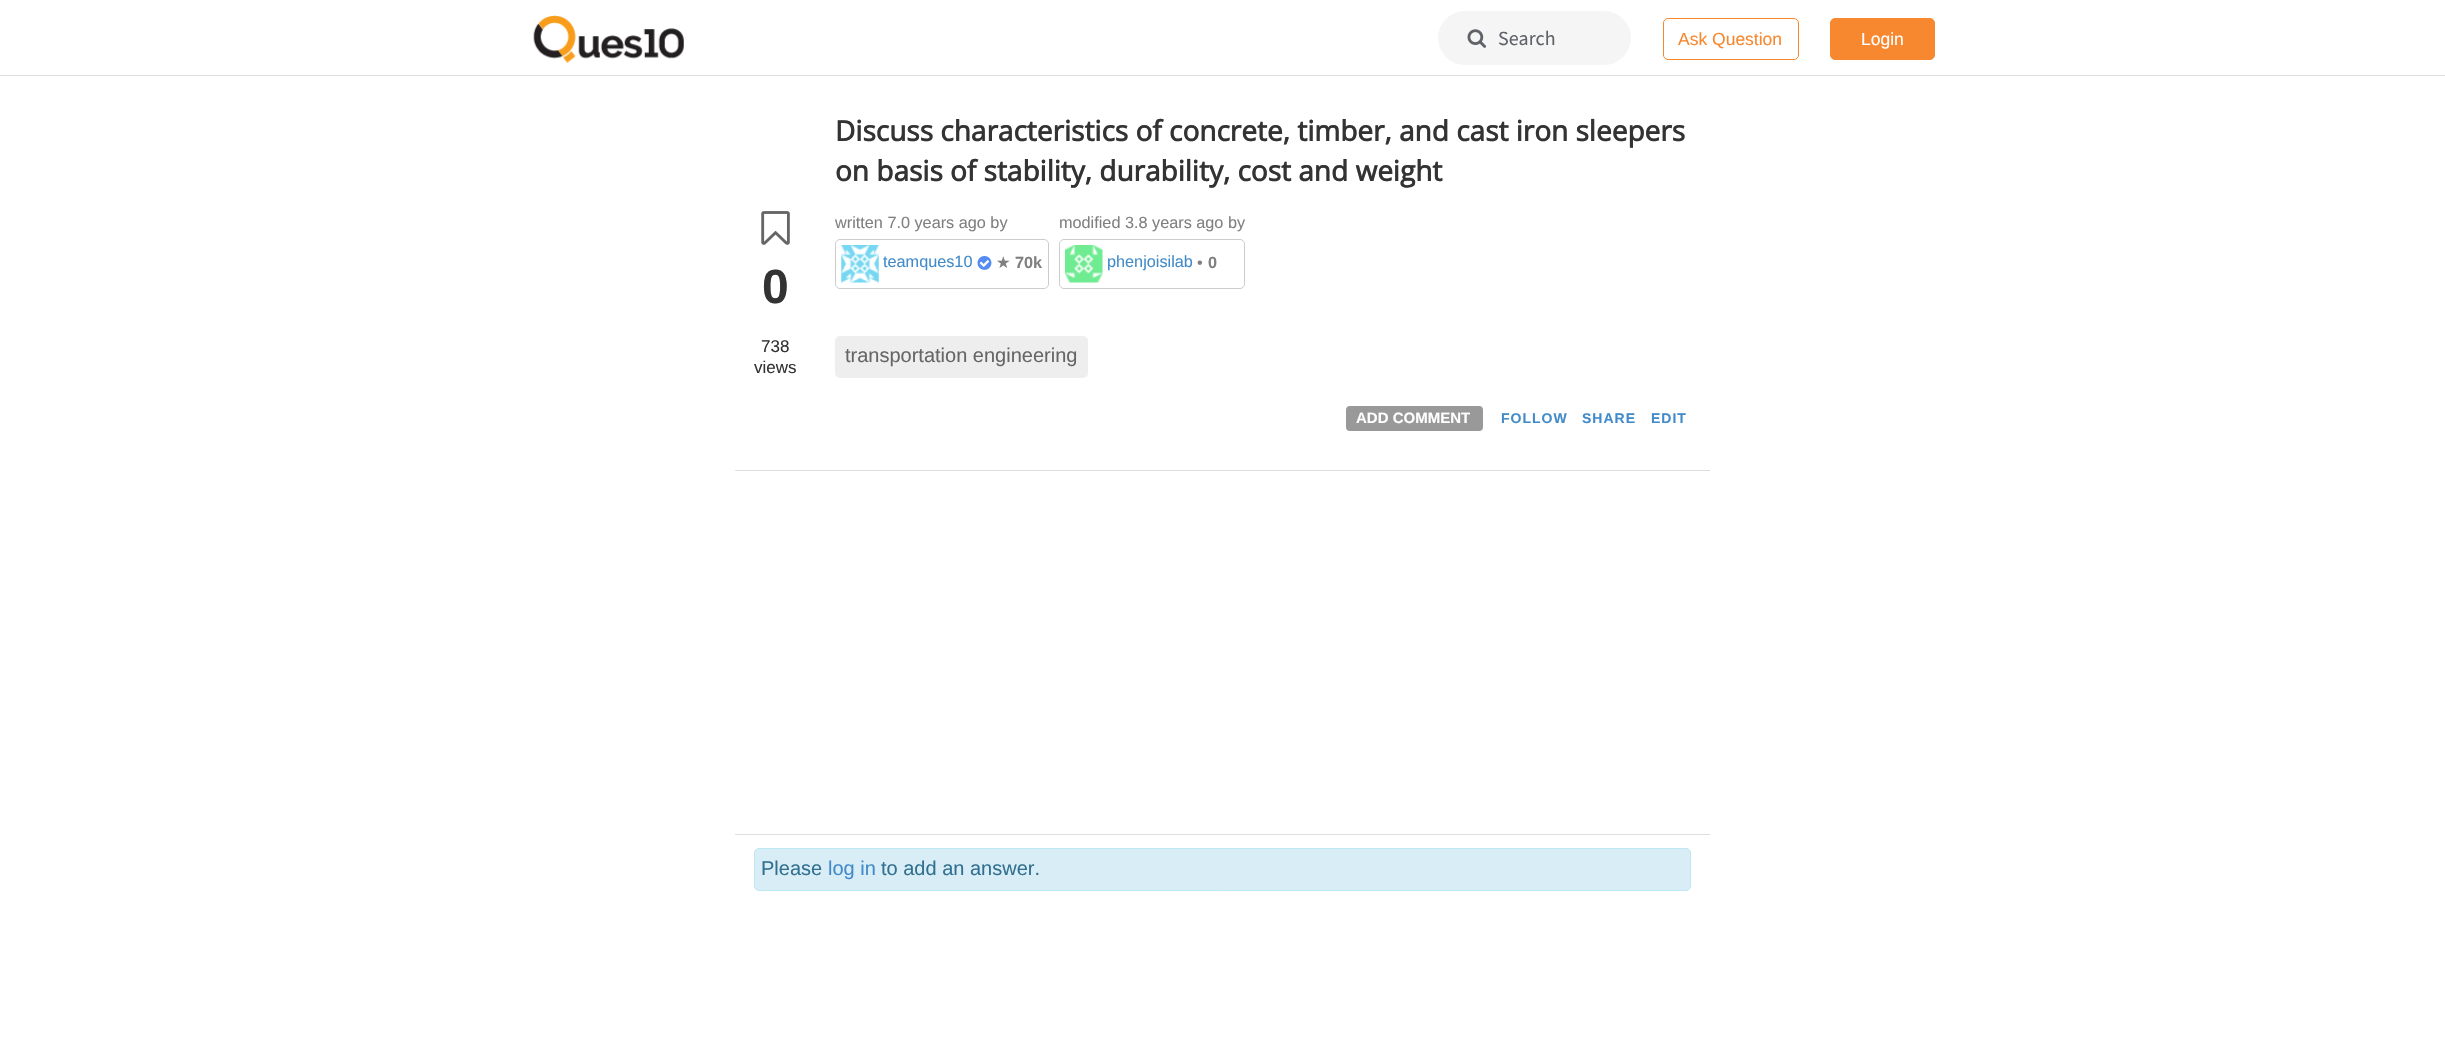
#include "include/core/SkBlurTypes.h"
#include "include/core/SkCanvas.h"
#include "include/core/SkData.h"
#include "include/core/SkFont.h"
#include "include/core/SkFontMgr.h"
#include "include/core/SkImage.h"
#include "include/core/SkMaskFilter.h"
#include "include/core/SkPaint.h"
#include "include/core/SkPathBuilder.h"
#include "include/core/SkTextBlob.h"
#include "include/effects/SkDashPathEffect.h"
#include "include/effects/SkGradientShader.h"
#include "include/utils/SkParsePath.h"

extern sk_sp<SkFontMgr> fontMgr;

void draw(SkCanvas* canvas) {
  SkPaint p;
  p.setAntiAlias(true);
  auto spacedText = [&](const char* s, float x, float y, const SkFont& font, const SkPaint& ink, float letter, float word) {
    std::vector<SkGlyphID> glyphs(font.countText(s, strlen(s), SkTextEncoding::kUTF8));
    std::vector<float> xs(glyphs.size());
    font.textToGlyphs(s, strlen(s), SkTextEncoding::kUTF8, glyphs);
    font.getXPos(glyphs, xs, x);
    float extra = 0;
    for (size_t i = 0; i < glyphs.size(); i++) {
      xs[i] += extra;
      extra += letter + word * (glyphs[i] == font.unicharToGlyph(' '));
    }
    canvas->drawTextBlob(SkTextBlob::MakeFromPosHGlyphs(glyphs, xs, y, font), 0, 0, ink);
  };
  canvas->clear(SK_ColorWHITE);
  p.setColor(SkColorSetRGB(222, 222, 222));
  canvas->drawRect(SkRect::MakeLTRB(0, 75, 2445, 76), p);
  canvas->drawImageRect(SkImages::DeferredFromEncodedData(SkData::MakeFromFileName("images/1.png")), SkRect::MakeLTRB(533, 15, 684, 63), SkSamplingOptions());
  p.setColor(SkColorSetRGB(245, 245, 245));
  canvas->drawRoundRect(SkRect::MakeLTRB(1438, 11, 1631, 65), 27, 27, p);
  canvas->drawImageRect(SkImages::DeferredFromEncodedData(SkData::MakeFromFileName("images/2.png")), SkRect::MakeLTRB(1467, 29, 1487, 48), SkSamplingOptions());
  p.setStyle(SkPaint::kStroke_Style);
  p.setStrokeWidth(1);
  p.setColor(SkColorSetRGB(247, 136, 47));
  canvas->drawRoundRect(SkRect::MakeLTRB(1663.5f, 18.5f, 1798.5f, 59.5f), 4.5f, 4.5f, p);
  p.setStyle(SkPaint::kFill_Style);
  canvas->drawRoundRect(SkRect::MakeLTRB(1830.5f, 18.5f, 1934.5f, 59.5f), 4.5f, 4.5f, p);
  p.setStyle(SkPaint::kStroke_Style);
  canvas->drawRoundRect(SkRect::MakeLTRB(1830.5f, 18.5f, 1934.5f, 59.5f), 4.5f, 4.5f, p);
  p.setStyle(SkPaint::kFill_Style);
  p.setColor(SkColorSetRGB(222, 222, 222));
  canvas->drawRect(SkRect::MakeLTRB(735, 470, 1710, 471), p);
  canvas->drawImageRect(SkImages::DeferredFromEncodedData(SkData::MakeFromFileName("images/3.png")), SkRect::MakeLTRB(761, 211, 790, 245), SkSamplingOptions());
  p.setStyle(SkPaint::kStroke_Style);
  p.setColor(SkColorSetRGB(204, 204, 204));
  canvas->drawRoundRect(SkRect::MakeLTRB(835.5f, 239.5f, 1048.5f, 288.5f), 4.5f, 4.5f, p);
  canvas->drawImageRect(SkImages::DeferredFromEncodedData(SkData::MakeFromFileName("images/4.png")), SkRect::MakeLTRB(841, 245, 879, 283), SkSamplingOptions());
  canvas->drawImageRect(SkImages::DeferredFromEncodedData(SkData::MakeFromFileName("images/5.png")), SkRect::MakeLTRB(977, 256, 992, 270), SkSamplingOptions());
  canvas->drawRoundRect(SkRect::MakeLTRB(1059.5f, 239.5f, 1244.5f, 288.5f), 4.5f, 4.5f, p);
  canvas->drawImageRect(SkImages::DeferredFromEncodedData(SkData::MakeFromFileName("images/6.png")), SkRect::MakeLTRB(1065, 245, 1103, 283), SkSamplingOptions());
  p.setStyle(SkPaint::kFill_Style);
  p.setColor(SkColorSetRGB(238, 238, 238));
  canvas->drawRoundRect(SkRect::MakeLTRB(835, 336, 1088, 378), 5, 5, p);
  p.setColor(SkColorSetRGB(153, 153, 153));
  canvas->drawRoundRect(SkRect::MakeLTRB(1346, 406, 1483, 431), 4, 4, p);
  p.setColor(SkColorSetRGB(222, 222, 222));
  canvas->drawRect(SkRect::MakeLTRB(735, 834, 1710, 835), p);
  p.setColor(SkColorSetRGB(217, 237, 247));
  canvas->drawRoundRect(SkRect::MakeLTRB(754.5f, 848.5f, 1690.5f, 890.5f), 4.5f, 4.5f, p);
  p.setStyle(SkPaint::kStroke_Style);
  p.setColor(SkColorSetRGB(188, 232, 241));
  canvas->drawRoundRect(SkRect::MakeLTRB(754.5f, 848.5f, 1690.5f, 890.5f), 4.5f, 4.5f, p);
  SkFont font1(fontMgr->matchFamilyStyle("Source Sans Pro", SkFontStyle::Normal()), 20);
  font1.setSubpixel(true);
  p.setStyle(SkPaint::kFill_Style);
  p.setColor(SkColorSetRGB(95, 99, 104));
  canvas->drawString("Search", 1498, 45, font1, p);
  SkFont font2(fontMgr->matchFamilyStyle("Liberation Sans", SkFontStyle::Normal()), 17.5f);
  font2.setSubpixel(true);
  p.setColor(SkColorSetRGB(247, 136, 47));
  canvas->drawString("Ask Question", 1678, 45, font2, p);
  p.setColor(SK_ColorWHITE);
  canvas->drawString("Login", 1861, 45, font2, p);
  SkFont font3(fontMgr->matchFamilyStyle("Liberation Sans", SkFontStyle::Bold()), 48);
  font3.setSubpixel(true);
  p.setColor(SkColorSetRGB(51, 51, 51));
  canvas->drawString("0", 762, 303, font3, p);
  SkFont font4(fontMgr->matchFamilyStyle("Liberation Sans", SkFontStyle::Normal()), 17);
  font4.setSubpixel(true);
  canvas->drawString("738", 761, 352, font4, p);
  canvas->drawString("views", 754, 373, font4, p);
  SkFont font5(fontMgr->matchFamilyStyle("Open Sans", SkFontStyle::Bold()), 28);
  font5.setSubpixel(true);
  canvas->drawString("Discuss characteristics of concrete, timber, and cast iron sleepers", 835, 141, font5, p);
  canvas->drawString("on basis of stability, durability, cost and weight", 835, 181, font5, p);
  SkFont font6(fontMgr->matchFamilyStyle("Liberation Sans", SkFontStyle::Normal()), 16.25f);
  font6.setSubpixel(true);
  p.setColor(SkColorSetRGB(128, 128, 128));
  canvas->drawString("written 7.0 years ago by", 835, 228, font6, p);
  p.setColor(SkColorSetRGB(66, 139, 202));
  canvas->drawString("teamques10", 883, 267, font6, p);
  SkFont font7(fontMgr->matchFamilyStyle("DejaVu Sans", SkFontStyle::Normal()), 16.25f);
  font7.setSubpixel(true);
  p.setColor(SkColorSetRGB(128, 128, 128));
  canvas->drawString("★", 996, 268, font7, p);
  SkFont font8(fontMgr->matchFamilyStyle("Liberation Sans", SkFontStyle::Bold()), 16.25f);
  font8.setSubpixel(true);
  canvas->drawString("70k", 1015, 268, font8, p);
  canvas->drawString("modified 3.8 years ago by", 1059, 228, font6, p);
  p.setColor(SkColorSetRGB(66, 139, 202));
  canvas->drawString("phenjoisilab", 1107, 267, font6, p);
  p.setColor(SkColorSetRGB(128, 128, 128));
  canvas->drawString("•", 1197, 268, font6, p);
  canvas->drawString("0", 1208, 268, font8, p);
  SkFont font9(fontMgr->matchFamilyStyle("Liberation Sans", SkFontStyle::Normal()), 20);
  font9.setSubpixel(true);
  p.setColor(SkColorSetRGB(102, 102, 102));
  canvas->drawString("transportation engineering", 845, 362, font9, p);
  SkFont font10(fontMgr->matchFamilyStyle("Liberation Sans", SkFontStyle::Bold()), 15);
  font10.setSubpixel(true);
  p.setColor(SK_ColorWHITE);
  canvas->drawString("ADD COMMENT", 1356, 423, font10, p);
  SkFont font11(fontMgr->matchFamilyStyle("Liberation Sans", SkFontStyle::Bold()), 14);
  font11.setSubpixel(true);
  p.setColor(SkColorSetRGB(66, 139, 202));
  spacedText("FOLLOW", 1501, 423, font11, p, 1, 0);
  spacedText("SHARE", 1582, 423, font11, p, 1, 0);
  spacedText("EDIT", 1651, 423, font11, p, 1, 0);
  p.setColor(SkColorSetRGB(49, 112, 143));
  canvas->drawString("Please", 761, 875, font9, p);
  p.setColor(SkColorSetRGB(66, 139, 202));
  canvas->drawString("log in", 828, 875, font9, p);
  p.setColor(SkColorSetRGB(49, 112, 143));
  canvas->drawString("to add an answer.", 881, 875, font9, p);
}
